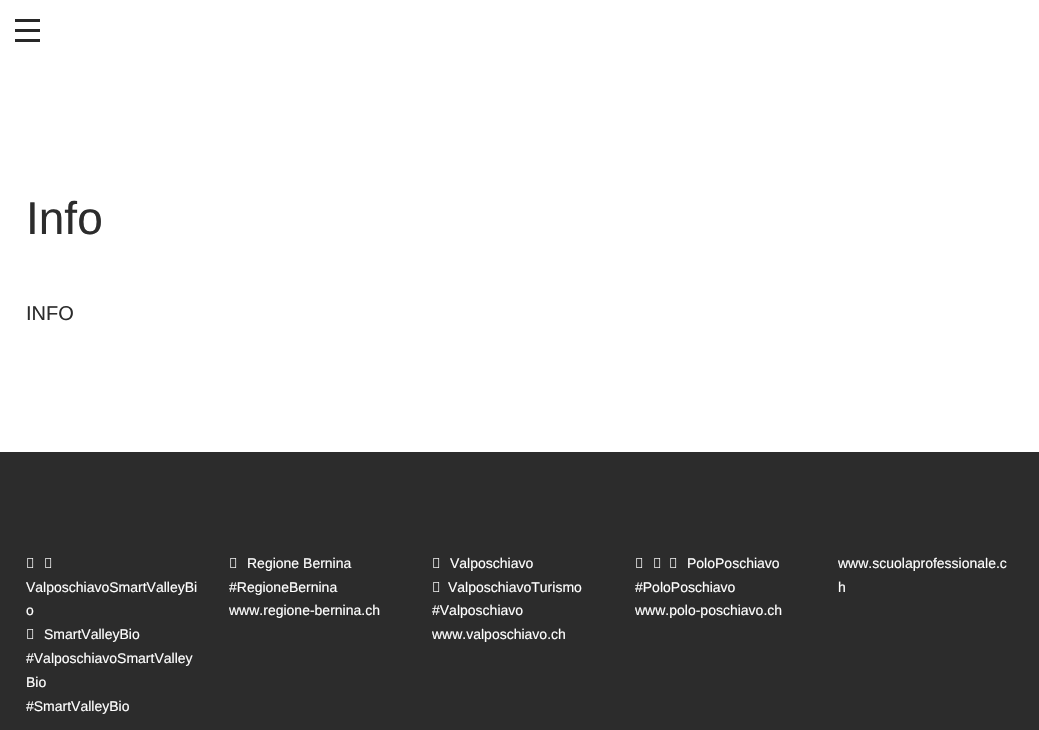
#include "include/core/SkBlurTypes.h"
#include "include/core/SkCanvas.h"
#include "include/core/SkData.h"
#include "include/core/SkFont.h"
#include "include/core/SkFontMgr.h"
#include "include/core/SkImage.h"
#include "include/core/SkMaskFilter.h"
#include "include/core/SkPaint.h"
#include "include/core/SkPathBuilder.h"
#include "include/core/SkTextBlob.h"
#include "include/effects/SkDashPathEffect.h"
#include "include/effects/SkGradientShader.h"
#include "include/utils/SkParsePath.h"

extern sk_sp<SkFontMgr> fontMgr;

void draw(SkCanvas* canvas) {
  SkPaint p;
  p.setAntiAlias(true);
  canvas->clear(SK_ColorWHITE);
  p.setColor(SkColorSetRGB(40, 40, 40));
  canvas->drawRect(SkRect::MakeLTRB(15, 19, 40, 22), p);
  canvas->drawRect(SkRect::MakeLTRB(15, 29, 40, 32), p);
  canvas->drawRect(SkRect::MakeLTRB(15, 39, 40, 42), p);
  p.setColor(SkColorSetRGB(44, 44, 44));
  canvas->drawRect(SkRect::MakeLTRB(0, 452, 1039, 730), p);
  canvas->drawImageRect(SkImages::DeferredFromEncodedData(SkData::MakeFromFileName("images/1.png")), SkRect::MakeLTRB(230, 558, 237, 568), SkSamplingOptions());
  canvas->drawImageRect(SkImages::DeferredFromEncodedData(SkData::MakeFromFileName("images/1.png")), SkRect::MakeLTRB(433, 558, 440, 568), SkSamplingOptions());
  canvas->drawImageRect(SkImages::DeferredFromEncodedData(SkData::MakeFromFileName("images/1.png")), SkRect::MakeLTRB(433, 582, 440, 592), SkSamplingOptions());
  canvas->drawImageRect(SkImages::DeferredFromEncodedData(SkData::MakeFromFileName("images/1.png")), SkRect::MakeLTRB(636, 558, 643, 568), SkSamplingOptions());
  canvas->drawImageRect(SkImages::DeferredFromEncodedData(SkData::MakeFromFileName("images/1.png")), SkRect::MakeLTRB(654, 558, 661, 568), SkSamplingOptions());
  canvas->drawImageRect(SkImages::DeferredFromEncodedData(SkData::MakeFromFileName("images/1.png")), SkRect::MakeLTRB(670, 558, 677, 568), SkSamplingOptions());
  canvas->drawImageRect(SkImages::DeferredFromEncodedData(SkData::MakeFromFileName("images/1.png")), SkRect::MakeLTRB(27, 558, 34, 568), SkSamplingOptions());
  canvas->drawImageRect(SkImages::DeferredFromEncodedData(SkData::MakeFromFileName("images/1.png")), SkRect::MakeLTRB(45, 558, 52, 568), SkSamplingOptions());
  canvas->drawImageRect(SkImages::DeferredFromEncodedData(SkData::MakeFromFileName("images/1.png")), SkRect::MakeLTRB(27, 629, 34, 639), SkSamplingOptions());
  SkFont font1(fontMgr->matchFamilyStyle("Liberation Sans", SkFontStyle::Normal()), 46);
  font1.setSubpixel(true);
  canvas->drawString("Info", 26, 234, font1, p);
  SkFont font2(fontMgr->matchFamilyStyle("Liberation Sans", SkFontStyle::Normal()), 20);
  font2.setSubpixel(true);
  canvas->drawString("INFO", 26, 320, font2, p);
  SkFont font3(fontMgr->matchFamilyStyle("Liberation Sans", SkFontStyle::Normal()), 14);
  font3.setSubpixel(true);
  p.setColor(SK_ColorWHITE);
  canvas->drawString("Regione Bernina", 247, 568, font3, p);
  canvas->drawString("#RegioneBernina", 229, 592, font3, p);
  canvas->drawString("www.regione-bernina.ch", 229, 615, font3, p);
  canvas->drawString("Valposchiavo", 450, 568, font3, p);
  canvas->drawString("ValposchiavoTurismo", 448, 592, font3, p);
  canvas->drawString("#Valposchiavo", 432, 615, font3, p);
  canvas->drawString("www.valposchiavo.ch", 432, 639, font3, p);
  canvas->drawString("PoloPoschiavo", 687, 568, font3, p);
  canvas->drawString("#PoloPoschiavo", 635, 592, font3, p);
  canvas->drawString("www.polo-poschiavo.ch", 635, 615, font3, p);
  canvas->drawString("www.scuolaprofessionale.c", 838, 568, font3, p);
  canvas->drawString("h", 838, 592, font3, p);
  canvas->drawString("ValposchiavoSmartValleyBi", 26, 592, font3, p);
  canvas->drawString("o", 26, 615, font3, p);
  canvas->drawString("SmartValleyBio", 44, 639, font3, p);
  canvas->drawString("#ValposchiavoSmartValley", 26, 663, font3, p);
  canvas->drawString("Bio", 26, 687, font3, p);
  canvas->drawString("#SmartValleyBio", 26, 711, font3, p);
}
